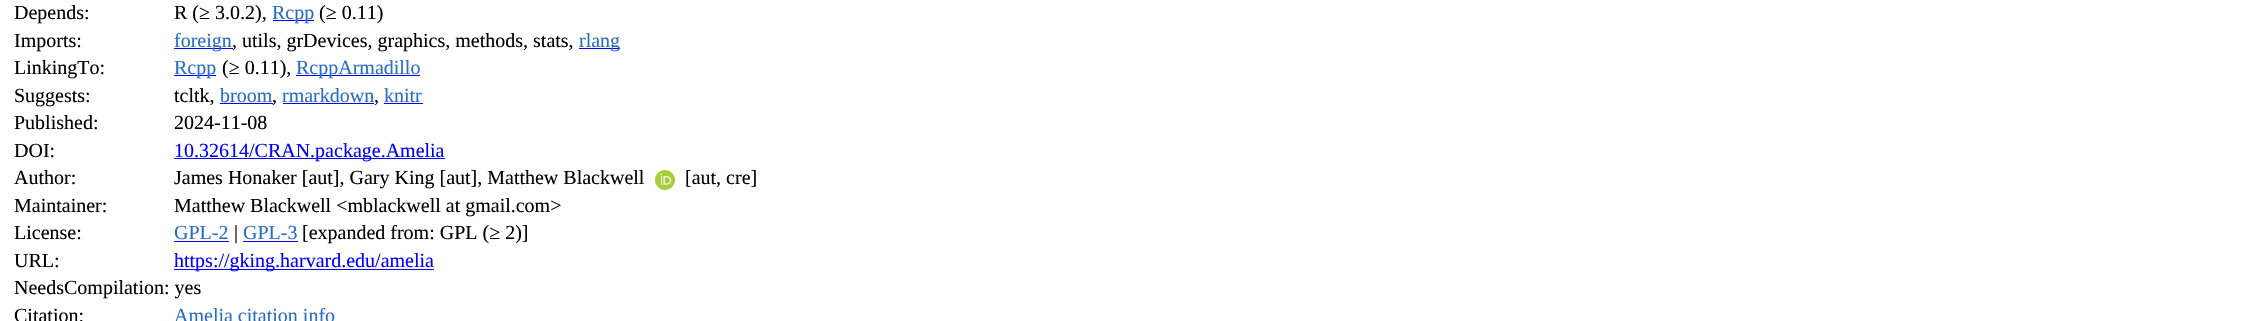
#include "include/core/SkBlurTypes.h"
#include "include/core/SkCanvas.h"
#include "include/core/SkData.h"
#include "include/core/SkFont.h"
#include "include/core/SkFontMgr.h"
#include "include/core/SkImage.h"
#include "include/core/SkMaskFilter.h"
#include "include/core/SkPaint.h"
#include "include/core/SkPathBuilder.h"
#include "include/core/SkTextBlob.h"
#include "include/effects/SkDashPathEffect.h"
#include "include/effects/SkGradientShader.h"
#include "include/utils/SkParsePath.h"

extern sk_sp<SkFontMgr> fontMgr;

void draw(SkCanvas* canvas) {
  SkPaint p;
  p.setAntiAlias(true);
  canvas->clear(SK_ColorWHITE);
  p.setColor(SkColorSetRGB(0, 0, 255));
  canvas->drawRect(SkRect::MakeLTRB(273, 20, 314, 21), p);
  canvas->drawRect(SkRect::MakeLTRB(174, 48, 233, 49), p);
  canvas->drawRect(SkRect::MakeLTRB(579, 48, 620, 49), p);
  canvas->drawRect(SkRect::MakeLTRB(174, 75, 216, 76), p);
  canvas->drawRect(SkRect::MakeLTRB(296, 75, 420, 76), p);
  canvas->drawRect(SkRect::MakeLTRB(220, 103, 273, 104), p);
  canvas->drawRect(SkRect::MakeLTRB(283, 103, 374, 104), p);
  canvas->drawRect(SkRect::MakeLTRB(384, 103, 423, 104), p);
  canvas->drawRect(SkRect::MakeLTRB(174, 158, 445, 159), p);
  canvas->drawImageRect(SkImages::DeferredFromEncodedData(SkData::MakeFromFileName("images/1.png")), SkRect::MakeLTRB(655, 170, 675, 190), SkSamplingOptions());
  canvas->drawRect(SkRect::MakeLTRB(174, 241, 229, 242), p);
  canvas->drawRect(SkRect::MakeLTRB(243, 241, 298, 242), p);
  canvas->drawRect(SkRect::MakeLTRB(174, 269, 434, 270), p);
  SkFont font1(fontMgr->matchFamilyStyle("Liberation Serif", SkFontStyle::Normal()), 20);
  font1.setSubpixel(true);
  p.setColor(SK_ColorBLACK);
  canvas->drawString("Depends:", 14, 19, font1, p);
  canvas->drawString("R (≥ 3.0.2),", 174, 19, font1, p);
  p.setColor(SkColorSetRGB(39, 109, 195));
  canvas->drawString("Rcpp", 272, 19, font1, p);
  p.setColor(SK_ColorBLACK);
  canvas->drawString("(≥ 0.11)", 319, 19, font1, p);
  canvas->drawString("Imports:", 14, 47, font1, p);
  p.setColor(SkColorSetRGB(39, 109, 195));
  canvas->drawString("foreign", 174, 47, font1, p);
  p.setColor(SK_ColorBLACK);
  canvas->drawString(", utils, grDevices, graphics, methods, stats,", 232, 47, font1, p);
  p.setColor(SkColorSetRGB(39, 109, 195));
  canvas->drawString("rlang", 579, 47, font1, p);
  p.setColor(SK_ColorBLACK);
  canvas->drawString("LinkingTo:", 14, 74, font1, p);
  p.setColor(SkColorSetRGB(39, 109, 195));
  canvas->drawString("Rcpp", 174, 74, font1, p);
  p.setColor(SK_ColorBLACK);
  canvas->drawString("(≥ 0.11),", 222, 74, font1, p);
  p.setColor(SkColorSetRGB(39, 109, 195));
  canvas->drawString("RcppArmadillo", 296, 74, font1, p);
  p.setColor(SK_ColorBLACK);
  canvas->drawString("Suggests:", 14, 102, font1, p);
  canvas->drawString("tcltk,", 174, 102, font1, p);
  p.setColor(SkColorSetRGB(39, 109, 195));
  canvas->drawString("broom", 220, 102, font1, p);
  p.setColor(SK_ColorBLACK);
  canvas->drawString(",", 272, 102, font1, p);
  p.setColor(SkColorSetRGB(39, 109, 195));
  canvas->drawString("rmarkdown", 282, 102, font1, p);
  p.setColor(SK_ColorBLACK);
  canvas->drawString(",", 374, 102, font1, p);
  p.setColor(SkColorSetRGB(39, 109, 195));
  canvas->drawString("knitr", 384, 102, font1, p);
  p.setColor(SK_ColorBLACK);
  canvas->drawString("Published:", 14, 129, font1, p);
  canvas->drawString("2024-11-08", 174, 129, font1, p);
  canvas->drawString("DOI:", 14, 157, font1, p);
  p.setColor(SkColorSetRGB(0, 0, 255));
  canvas->drawString("10.32614/CRAN.package.Amelia", 174, 157, font1, p);
  p.setColor(SK_ColorBLACK);
  canvas->drawString("Author:", 14, 184, font1, p);
  canvas->drawString("James Honaker [aut], Gary King [aut], Matthew Blackwell", 174, 184, font1, p);
  canvas->drawString("[aut, cre]", 685, 184, font1, p);
  canvas->drawString("Maintainer:", 14, 212, font1, p);
  canvas->drawString("Matthew Blackwell <mblackwell at gmail.com>", 174, 212, font1, p);
  canvas->drawString("License:", 14, 239, font1, p);
  p.setColor(SkColorSetRGB(39, 109, 195));
  canvas->drawString("GPL-2", 174, 239, font1, p);
  p.setColor(SK_ColorBLACK);
  canvas->drawString("|", 234, 239, font1, p);
  p.setColor(SkColorSetRGB(39, 109, 195));
  canvas->drawString("GPL-3", 243, 239, font1, p);
  p.setColor(SK_ColorBLACK);
  canvas->drawString("[expanded from: GPL (≥ 2)]", 302, 239, font1, p);
  canvas->drawString("URL:", 14, 267, font1, p);
  p.setColor(SkColorSetRGB(0, 0, 255));
  canvas->drawString("https://gking.harvard.edu/amelia", 174, 267, font1, p);
  p.setColor(SK_ColorBLACK);
  canvas->drawString("NeedsCompilation: yes", 14, 294, font1, p);
  canvas->drawString("Citation:", 14, 322, font1, p);
  p.setColor(SkColorSetRGB(39, 109, 195));
  canvas->drawString("Amelia citation info", 174, 322, font1, p);
}
